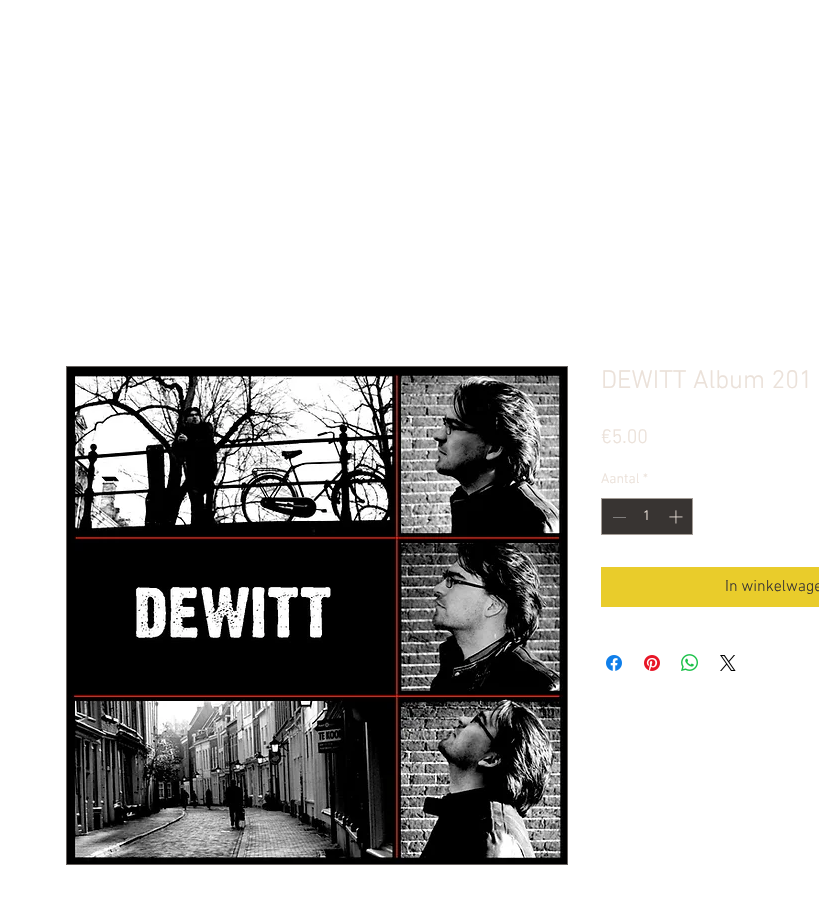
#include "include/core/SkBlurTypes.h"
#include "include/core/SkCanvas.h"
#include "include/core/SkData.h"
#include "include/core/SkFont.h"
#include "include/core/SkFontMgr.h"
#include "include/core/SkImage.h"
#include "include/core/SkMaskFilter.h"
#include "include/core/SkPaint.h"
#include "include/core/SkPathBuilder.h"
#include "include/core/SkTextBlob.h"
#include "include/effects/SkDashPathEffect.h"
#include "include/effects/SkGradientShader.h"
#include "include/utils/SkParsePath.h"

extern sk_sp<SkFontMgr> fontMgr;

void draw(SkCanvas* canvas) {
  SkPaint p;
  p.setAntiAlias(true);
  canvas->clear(SK_ColorWHITE);
  p.setStyle(SkPaint::kStroke_Style);
  p.setStrokeWidth(1);
  p.setColor(SkColorSetRGB(102, 97, 94));
  canvas->drawRect(SkRect::MakeLTRB(66.5f, 366.5f, 567.5f, 864.5f), p);
  canvas->drawImageRect(SkImages::DeferredFromEncodedData(SkData::MakeFromFileName("images/1.png")), SkRect::MakeLTRB(67, 367, 567, 864), SkSamplingOptions());
  p.setStyle(SkPaint::kFill_Style);
  p.setColor(SkColorSetRGB(56, 52, 50));
  canvas->drawRect(SkRect::MakeLTRB(601.5f, 498.5f, 692.5f, 534.5f), p);
  p.setStyle(SkPaint::kStroke_Style);
  p.setColor(SkColorSetRGB(163, 156, 150));
  canvas->drawRect(SkRect::MakeLTRB(601.5f, 498.5f, 692.5f, 534.5f), p);
  p.setStyle(SkPaint::kFill_Style);
  p.setColor(SkColorSetRGB(128, 126, 125));
  canvas->drawRect(SkRect::MakeLTRB(613, 517, 626, 518), p);
  canvas->drawImageRect(SkImages::DeferredFromEncodedData(SkData::MakeFromFileName("images/2.png")), SkRect::MakeLTRB(669, 510, 683, 524), SkSamplingOptions());
  p.setColor(SkColorSetRGB(233, 204, 43));
  canvas->drawRect(SkRect::MakeLTRB(601, 567, 819, 607), p);
  canvas->drawImageRect(SkImages::DeferredFromEncodedData(SkData::MakeFromFileName("images/3.png")), SkRect::MakeLTRB(606, 655, 622, 671), SkSamplingOptions());
  canvas->drawImageRect(SkImages::DeferredFromEncodedData(SkData::MakeFromFileName("images/4.png")), SkRect::MakeLTRB(644, 655, 660, 671), SkSamplingOptions());
  canvas->drawImageRect(SkImages::DeferredFromEncodedData(SkData::MakeFromFileName("images/5.png")), SkRect::MakeLTRB(681, 654, 698, 671), SkSamplingOptions());
  canvas->drawImageRect(SkImages::DeferredFromEncodedData(SkData::MakeFromFileName("images/6.png")), SkRect::MakeLTRB(720, 655, 736, 671), SkSamplingOptions());
  SkFont font1(fontMgr->matchFamilyStyle("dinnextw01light", SkFontStyle(300, SkFontStyle::kNormal_Width, SkFontStyle::kUpright_Slant)), 26);
  font1.setSubpixel(true);
  p.setColor(SkColorSetRGB(235, 225, 217));
  canvas->drawString("DEWITT Album 201", 601, 388, font1, p);
  SkFont font2(fontMgr->matchFamilyStyle("dinnextw01light", SkFontStyle(300, SkFontStyle::kNormal_Width, SkFontStyle::kUpright_Slant)), 20);
  font2.setSubpixel(true);
  canvas->drawString("€5.00", 601, 443, font2, p);
  SkFont font3(fontMgr->matchFamilyStyle("dinnextw01light", SkFontStyle(300, SkFontStyle::kNormal_Width, SkFontStyle::kUpright_Slant)), 14);
  font3.setSubpixel(true);
  canvas->drawString("Aantal", 601, 483, font3, p);
  canvas->drawString("*", 643, 483, font3, p);
  canvas->drawString("1", 643, 520, font3, p);
  SkFont font4(fontMgr->matchFamilyStyle("dinnextw01light", SkFontStyle(300, SkFontStyle::kNormal_Width, SkFontStyle::kUpright_Slant)), 16);
  font4.setSubpixel(true);
  p.setColor(SkColorSetRGB(56, 52, 50));
  canvas->drawString("In winkelwage", 725, 591, font4, p);
}
